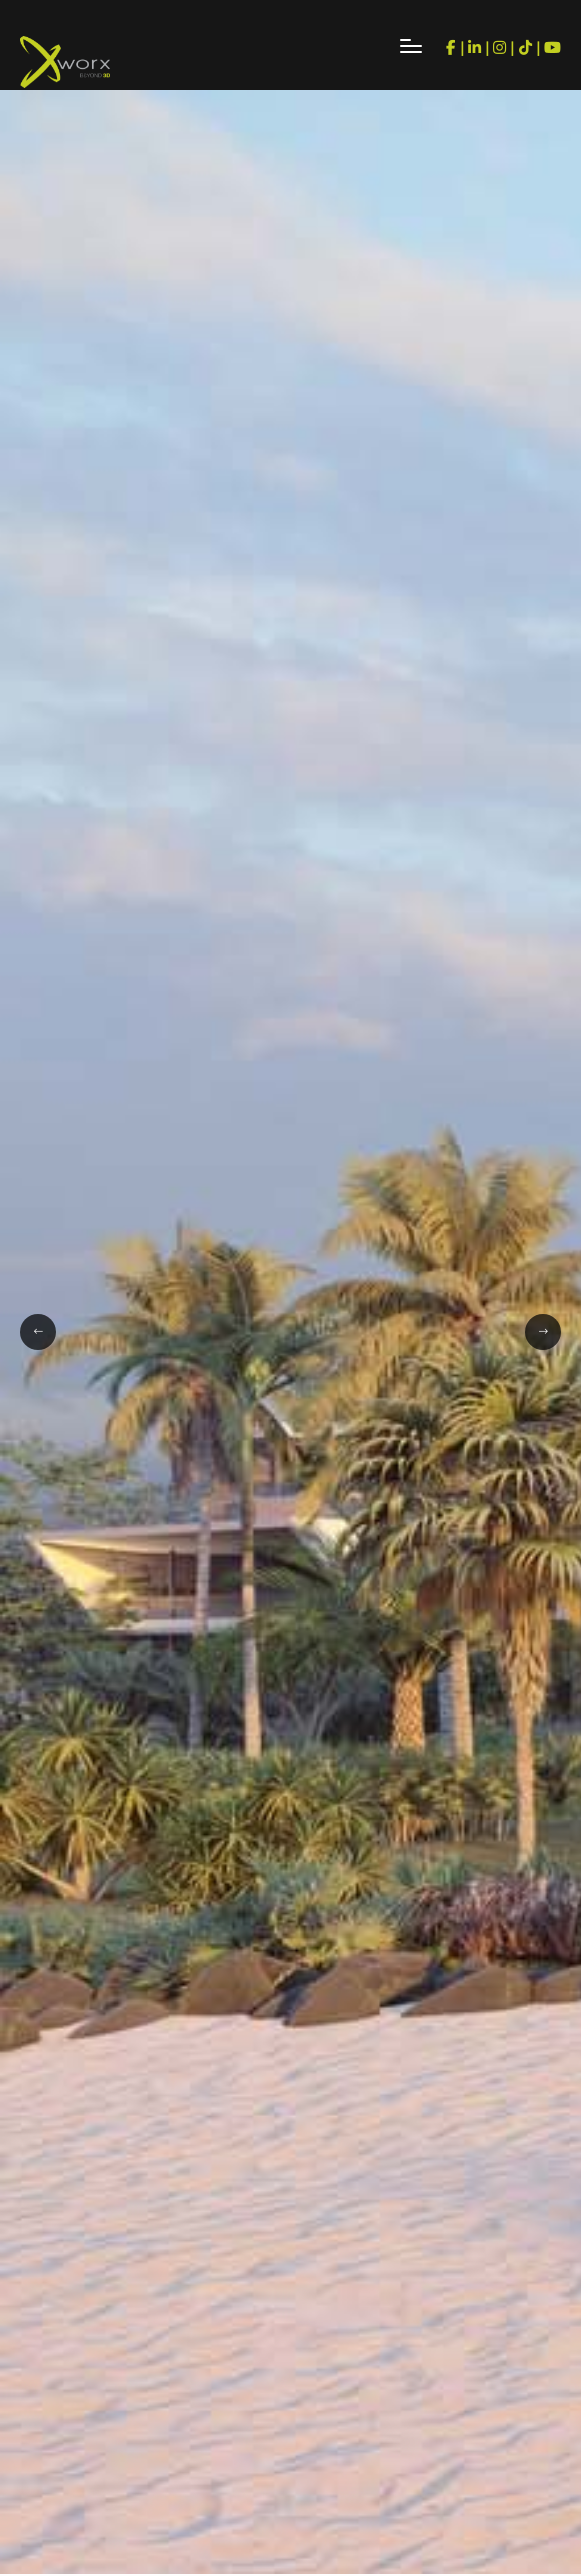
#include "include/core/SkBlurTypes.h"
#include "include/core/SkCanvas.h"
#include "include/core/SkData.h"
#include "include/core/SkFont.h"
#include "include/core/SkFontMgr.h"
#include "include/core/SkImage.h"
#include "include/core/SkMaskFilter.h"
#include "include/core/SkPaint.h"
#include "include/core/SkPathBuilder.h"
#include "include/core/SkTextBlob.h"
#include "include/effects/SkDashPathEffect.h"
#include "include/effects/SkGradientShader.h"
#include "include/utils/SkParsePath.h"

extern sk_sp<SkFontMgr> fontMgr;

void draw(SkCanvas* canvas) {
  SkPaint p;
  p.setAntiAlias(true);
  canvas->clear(SkColorSetRGB(22, 22, 22));
  canvas->drawImageRect(SkImages::DeferredFromEncodedData(SkData::MakeFromFileName("images/1.png")), SkRect::MakeLTRB(20, 36, 110, 88), SkSamplingOptions());
  p.setColor(SK_ColorWHITE);
  canvas->drawRoundRect(SkRect::MakeLTRB(400, 39, 411, 41), 1, 1, p);
  canvas->drawRoundRect(SkRect::MakeLTRB(400, 45, 422, 47), 1, 1, p);
  canvas->drawRoundRect(SkRect::MakeLTRB(400, 51, 422, 53), 1, 1, p);
  canvas->drawImageRect(SkImages::DeferredFromEncodedData(SkData::MakeFromFileName("images/2.png")), SkRect::MakeLTRB(446, 39, 455, 55), SkSamplingOptions());
  canvas->drawImageRect(SkImages::DeferredFromEncodedData(SkData::MakeFromFileName("images/3.png")), SkRect::MakeLTRB(468, 39, 482, 53), SkSamplingOptions());
  canvas->drawImageRect(SkImages::DeferredFromEncodedData(SkData::MakeFromFileName("images/4.png")), SkRect::MakeLTRB(493, 40, 507, 54), SkSamplingOptions());
  canvas->drawImageRect(SkImages::DeferredFromEncodedData(SkData::MakeFromFileName("images/5.png")), SkRect::MakeLTRB(519, 39, 533, 55), SkSamplingOptions());
  canvas->drawImageRect(SkImages::DeferredFromEncodedData(SkData::MakeFromFileName("images/6.png")), SkRect::MakeLTRB(544, 41, 561, 53), SkSamplingOptions());
  canvas->drawImageRect(SkImages::DeferredFromEncodedData(SkData::MakeFromFileName("images/7.png")), SkRect::MakeLTRB(0, 90, 581, 2574), SkSamplingOptions());
  p.setColor(SkColorSetARGB(181, 0, 0, 0));
  canvas->drawCircle(38, 1332, 18, p);
  canvas->drawImageRect(SkImages::DeferredFromEncodedData(SkData::MakeFromFileName("images/8.png")), SkRect::MakeLTRB(34, 1328, 43, 1334), SkSamplingOptions());
  canvas->drawCircle(543, 1332, 18, p);
  canvas->drawImageRect(SkImages::DeferredFromEncodedData(SkData::MakeFromFileName("images/9.png")), SkRect::MakeLTRB(539, 1328, 548, 1334), SkSamplingOptions());
  SkFont font1(fontMgr->matchFamilyStyle("Montserrat", SkFontStyle::Bold()), 15);
  font1.setSubpixel(true);
  p.setColor(SkColorSetRGB(195, 207, 33));
  canvas->drawString("|", 460, 53, font1, p);
  canvas->drawString("|", 485, 53, font1, p);
  canvas->drawString("|", 510, 53, font1, p);
  canvas->drawString("|", 536, 53, font1, p);
}
